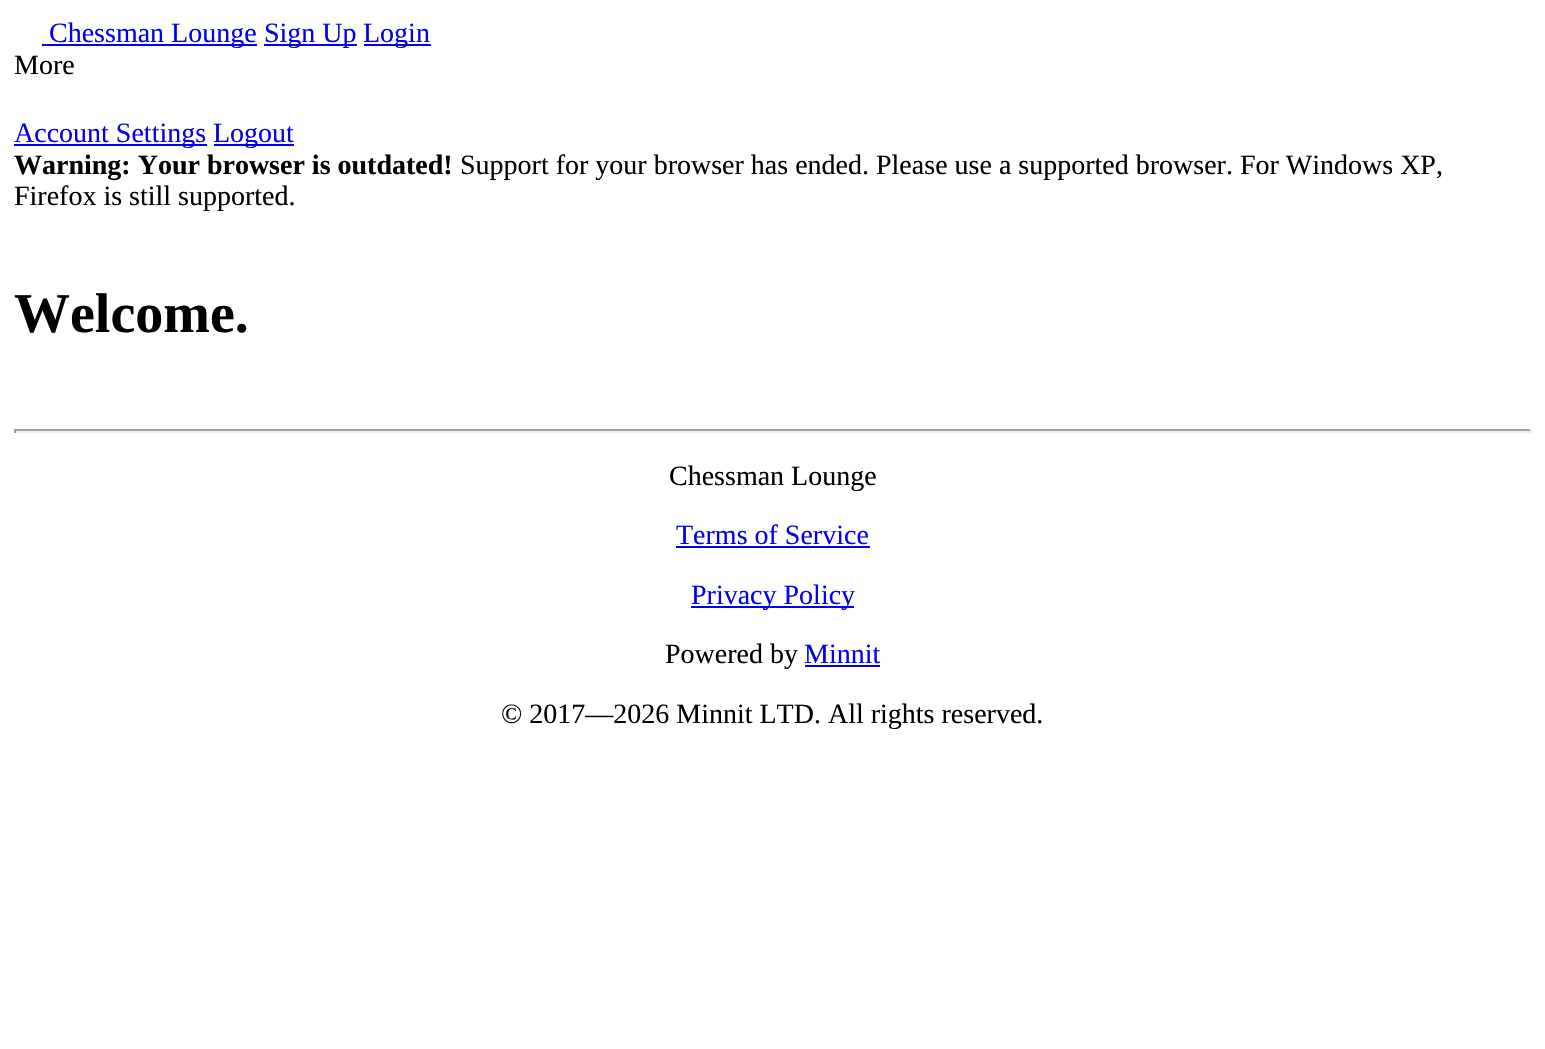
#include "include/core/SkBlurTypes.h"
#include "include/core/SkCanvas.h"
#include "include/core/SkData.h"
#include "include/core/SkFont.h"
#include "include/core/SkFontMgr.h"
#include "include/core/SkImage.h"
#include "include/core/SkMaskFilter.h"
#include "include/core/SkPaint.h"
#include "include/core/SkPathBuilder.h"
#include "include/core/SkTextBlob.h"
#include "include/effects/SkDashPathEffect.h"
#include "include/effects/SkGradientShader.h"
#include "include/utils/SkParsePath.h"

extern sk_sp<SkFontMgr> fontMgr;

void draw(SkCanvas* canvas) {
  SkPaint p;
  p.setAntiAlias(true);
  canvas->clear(SK_ColorWHITE);
  p.setColor(SkColorSetRGB(0, 0, 238));
  canvas->drawRect(SkRect::MakeLTRB(42, 44, 257, 46), p);
  canvas->drawRect(SkRect::MakeLTRB(264, 44, 357, 46), p);
  canvas->drawRect(SkRect::MakeLTRB(364, 44, 431, 46), p);
  canvas->drawRect(SkRect::MakeLTRB(14, 144, 207, 146), p);
  canvas->drawRect(SkRect::MakeLTRB(214, 144, 294, 146), p);
  p.setColor(SkColorSetRGB(159, 159, 159));
  canvas->drawRect(SkRect::MakeLTRB(14, 429, 1531, 431), p);
  p.setColor(SkColorSetRGB(238, 238, 238));
  canvas->drawRect(SkRect::MakeLTRB(1530, 429, 1532, 433), p);
  canvas->drawRect(SkRect::MakeLTRB(14, 431, 1531, 433), p);
  p.setColor(SkColorSetRGB(159, 159, 159));
  canvas->drawRect(SkRect::MakeLTRB(14, 429, 16, 433), p);
  p.setColor(SkColorSetRGB(0, 0, 238));
  canvas->drawRect(SkRect::MakeLTRB(676, 546, 870, 548), p);
  canvas->drawRect(SkRect::MakeLTRB(691, 606, 854, 608), p);
  canvas->drawRect(SkRect::MakeLTRB(805, 665, 880, 667), p);
  SkFont font1(fontMgr->matchFamilyStyle("Liberation Serif", SkFontStyle::Normal()), 28);
  font1.setSubpixel(true);
  canvas->drawString("Chessman Lounge", 49, 42, font1, p);
  canvas->drawString("Sign Up", 264, 42, font1, p);
  canvas->drawString("Login", 363, 42, font1, p);
  p.setColor(SK_ColorBLACK);
  canvas->drawString("More", 14, 74, font1, p);
  p.setColor(SkColorSetRGB(0, 0, 238));
  canvas->drawString("Account Settings", 14, 142, font1, p);
  canvas->drawString("Logout", 213, 142, font1, p);
  SkFont font2(fontMgr->matchFamilyStyle("Liberation Serif", SkFontStyle::Bold()), 28);
  font2.setSubpixel(true);
  p.setColor(SK_ColorBLACK);
  canvas->drawString("Warning: Your browser is outdated!", 14, 174, font2, p);
  canvas->drawString("Support for your browser has ended. Please use a supported browser. For Windows XP,", 460, 174, font1, p);
  canvas->drawString("Firefox is still supported.", 14, 205, font1, p);
  SkFont font3(fontMgr->matchFamilyStyle("Liberation Serif", SkFontStyle::Bold()), 56);
  font3.setSubpixel(true);
  canvas->drawString("Welcome.", 14, 332, font3, p);
  canvas->drawString("Chessman Lounge", 669, 485, font1, p);
  p.setColor(SkColorSetRGB(0, 0, 238));
  canvas->drawString("Terms of Service", 676, 544, font1, p);
  canvas->drawString("Privacy Policy", 691, 604, font1, p);
  p.setColor(SK_ColorBLACK);
  canvas->drawString("Powered by", 665, 663, font1, p);
  p.setColor(SkColorSetRGB(0, 0, 238));
  canvas->drawString("Minnit", 804, 663, font1, p);
  p.setColor(SK_ColorBLACK);
  canvas->drawString("© 2017—2026 Minnit LTD. All rights reserved.", 501, 723, font1, p);
}
